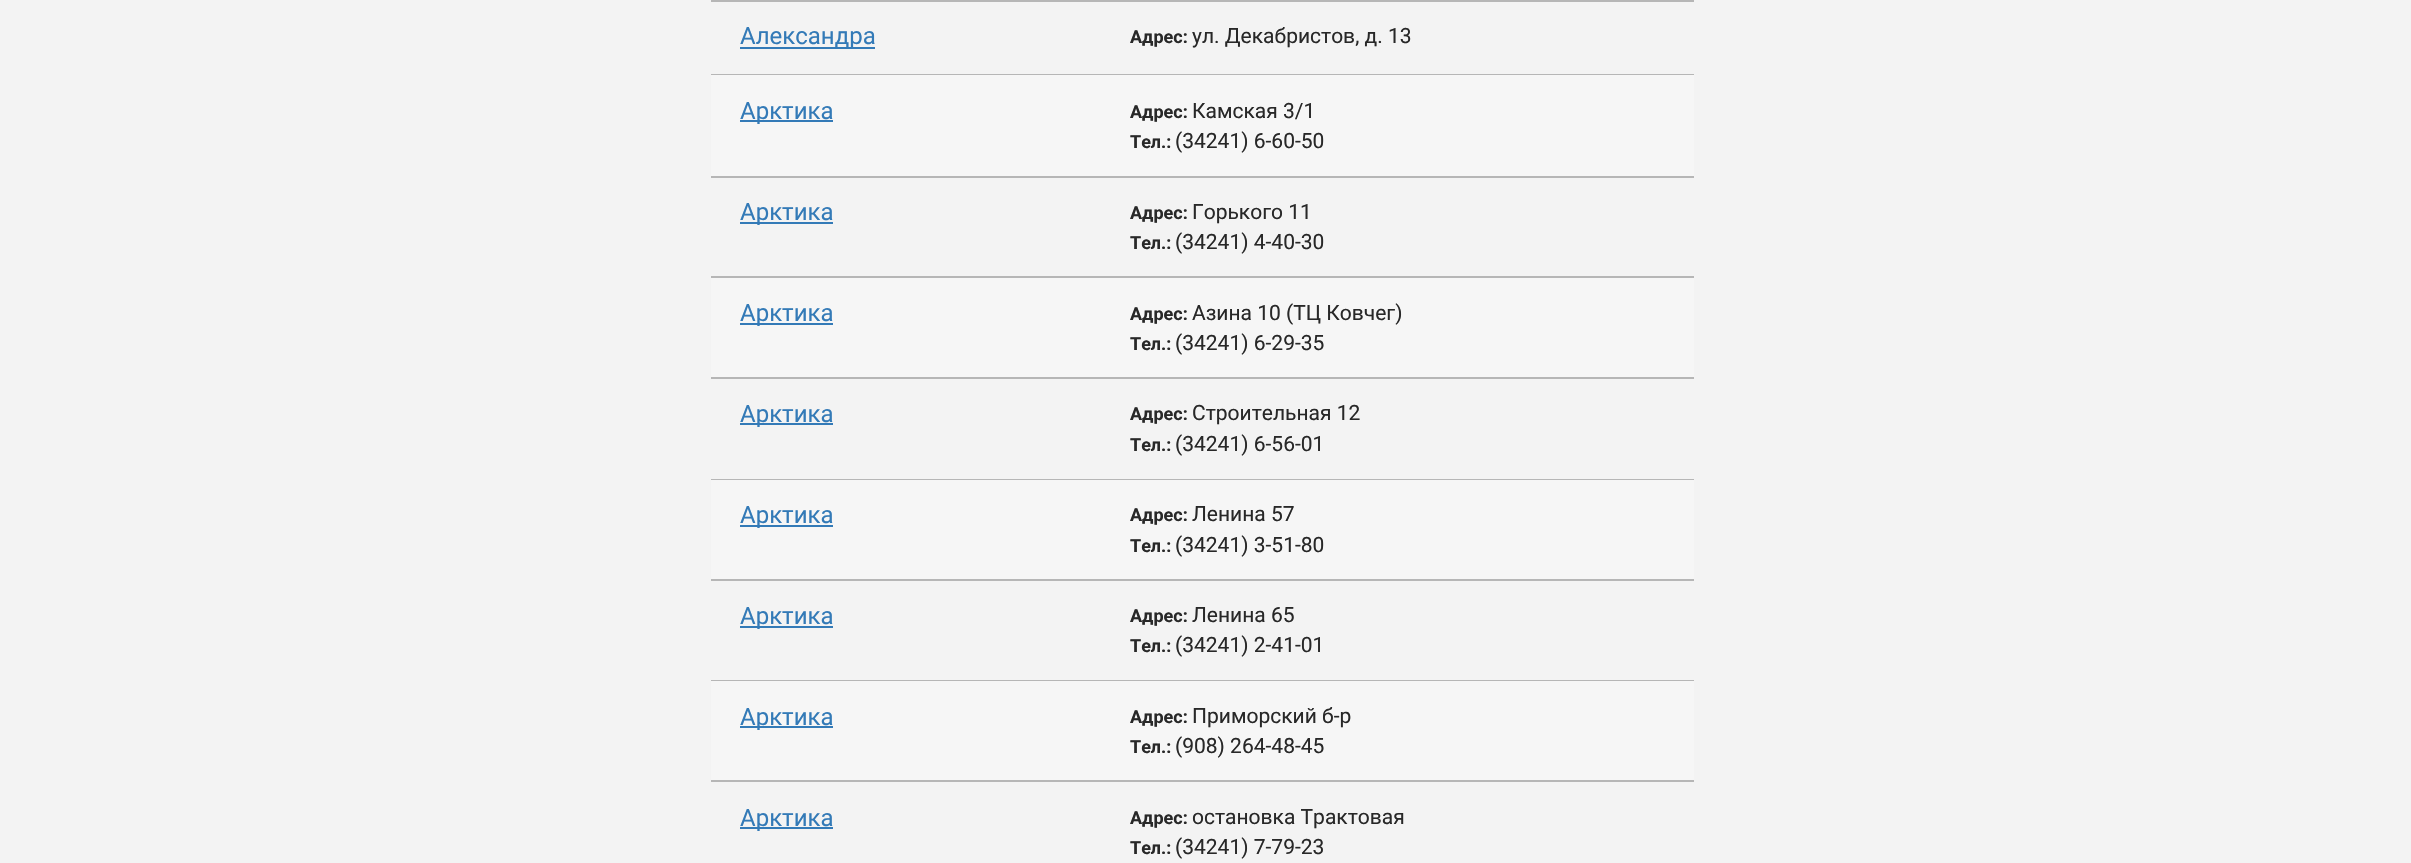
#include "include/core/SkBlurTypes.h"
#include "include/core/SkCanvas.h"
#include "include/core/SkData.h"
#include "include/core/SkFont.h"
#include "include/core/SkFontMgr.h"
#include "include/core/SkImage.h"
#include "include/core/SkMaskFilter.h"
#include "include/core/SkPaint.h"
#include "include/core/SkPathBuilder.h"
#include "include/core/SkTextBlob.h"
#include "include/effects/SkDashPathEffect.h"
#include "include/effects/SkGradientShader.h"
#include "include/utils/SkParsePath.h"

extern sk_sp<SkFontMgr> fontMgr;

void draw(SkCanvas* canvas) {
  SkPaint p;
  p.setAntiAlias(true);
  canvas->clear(SkColorSetRGB(243, 243, 243));
  p.setColor(SkColorSetRGB(182, 182, 182));
  canvas->drawRect(SkRect::MakeLTRB(711, 0, 1694, 2), p);
  canvas->drawRect(SkRect::MakeLTRB(711, 74, 1694, 75), p);
  p.setColor(SkColorSetRGB(51, 122, 183));
  canvas->drawRect(SkRect::MakeLTRB(740, 47, 875, 49), p);
  p.setColor(SkColorSetRGB(246, 246, 246));
  canvas->drawRect(SkRect::MakeLTRB(711, 75, 1694, 176), p);
  p.setColor(SkColorSetRGB(182, 182, 182));
  canvas->drawRect(SkRect::MakeLTRB(711, 176, 1694, 178), p);
  p.setColor(SkColorSetRGB(51, 122, 183));
  canvas->drawRect(SkRect::MakeLTRB(740, 120, 833, 122), p);
  p.setColor(SkColorSetRGB(182, 182, 182));
  canvas->drawRect(SkRect::MakeLTRB(711, 276, 1694, 278), p);
  p.setColor(SkColorSetRGB(51, 122, 183));
  canvas->drawRect(SkRect::MakeLTRB(740, 222, 833, 224), p);
  p.setColor(SkColorSetRGB(246, 246, 246));
  canvas->drawRect(SkRect::MakeLTRB(711, 278, 1694, 377), p);
  p.setColor(SkColorSetRGB(182, 182, 182));
  canvas->drawRect(SkRect::MakeLTRB(711, 377, 1694, 379), p);
  p.setColor(SkColorSetRGB(51, 122, 183));
  canvas->drawRect(SkRect::MakeLTRB(740, 323, 833, 325), p);
  p.setColor(SkColorSetRGB(182, 182, 182));
  canvas->drawRect(SkRect::MakeLTRB(711, 479, 1694, 480), p);
  p.setColor(SkColorSetRGB(51, 122, 183));
  canvas->drawRect(SkRect::MakeLTRB(740, 423, 833, 425), p);
  p.setColor(SkColorSetRGB(246, 246, 246));
  canvas->drawRect(SkRect::MakeLTRB(711, 480, 1694, 579), p);
  p.setColor(SkColorSetRGB(182, 182, 182));
  canvas->drawRect(SkRect::MakeLTRB(711, 579, 1694, 581), p);
  p.setColor(SkColorSetRGB(51, 122, 183));
  canvas->drawRect(SkRect::MakeLTRB(740, 525, 833, 527), p);
  p.setColor(SkColorSetRGB(182, 182, 182));
  canvas->drawRect(SkRect::MakeLTRB(711, 680, 1694, 681), p);
  p.setColor(SkColorSetRGB(51, 122, 183));
  canvas->drawRect(SkRect::MakeLTRB(740, 626, 833, 628), p);
  p.setColor(SkColorSetRGB(246, 246, 246));
  canvas->drawRect(SkRect::MakeLTRB(711, 681, 1694, 780), p);
  p.setColor(SkColorSetRGB(182, 182, 182));
  canvas->drawRect(SkRect::MakeLTRB(711, 780, 1694, 782), p);
  p.setColor(SkColorSetRGB(51, 122, 183));
  canvas->drawRect(SkRect::MakeLTRB(740, 726, 833, 728), p);
  canvas->drawRect(SkRect::MakeLTRB(740, 827, 833, 829), p);
  SkFont font1(fontMgr->matchFamilyStyle("Roboto", SkFontStyle::Normal()), 24);
  font1.setSubpixel(true);
  canvas->drawString("Александра", 740, 44, font1, p);
  SkFont font2(fontMgr->matchFamilyStyle("Roboto", SkFontStyle::Bold()), 18);
  font2.setSubpixel(true);
  p.setColor(SkColorSetRGB(40, 40, 40));
  canvas->drawString("Адрес:", 1130, 43, font2, p);
  SkFont font3(fontMgr->matchFamilyStyle("Roboto", SkFontStyle::Normal()), 21);
  font3.setSubpixel(true);
  canvas->drawString("ул. Декабристов, д. 13", 1192, 43, font3, p);
  p.setColor(SkColorSetRGB(51, 122, 183));
  canvas->drawString("Арктика", 740, 119, font1, p);
  p.setColor(SkColorSetRGB(40, 40, 40));
  canvas->drawString("Адрес:", 1130, 118, font2, p);
  canvas->drawString("Камская 3/1", 1192, 118, font3, p);
  canvas->drawString("Тел.:", 1130, 148, font2, p);
  canvas->drawString("(34241) 6-60-50", 1175, 148, font3, p);
  p.setColor(SkColorSetRGB(51, 122, 183));
  canvas->drawString("Арктика", 740, 220, font1, p);
  p.setColor(SkColorSetRGB(40, 40, 40));
  canvas->drawString("Адрес:", 1130, 219, font2, p);
  canvas->drawString("Горького 11", 1192, 219, font3, p);
  canvas->drawString("Тел.:", 1130, 249, font2, p);
  canvas->drawString("(34241) 4-40-30", 1175, 249, font3, p);
  p.setColor(SkColorSetRGB(51, 122, 183));
  canvas->drawString("Арктика", 740, 321, font1, p);
  p.setColor(SkColorSetRGB(40, 40, 40));
  canvas->drawString("Адрес:", 1130, 320, font2, p);
  canvas->drawString("Азина 10 (ТЦ Ковчег)", 1192, 320, font3, p);
  canvas->drawString("Тел.:", 1130, 350, font2, p);
  canvas->drawString("(34241) 6-29-35", 1175, 350, font3, p);
  p.setColor(SkColorSetRGB(51, 122, 183));
  canvas->drawString("Арктика", 740, 422, font1, p);
  p.setColor(SkColorSetRGB(40, 40, 40));
  canvas->drawString("Адрес:", 1130, 420, font2, p);
  canvas->drawString("Строительная 12", 1192, 420, font3, p);
  canvas->drawString("Тел.:", 1130, 451, font2, p);
  canvas->drawString("(34241) 6-56-01", 1175, 451, font3, p);
  p.setColor(SkColorSetRGB(51, 122, 183));
  canvas->drawString("Арктика", 740, 523, font1, p);
  p.setColor(SkColorSetRGB(40, 40, 40));
  canvas->drawString("Адрес:", 1130, 521, font2, p);
  canvas->drawString("Ленина 57", 1192, 521, font3, p);
  canvas->drawString("Тел.:", 1130, 552, font2, p);
  canvas->drawString("(34241) 3-51-80", 1175, 552, font3, p);
  p.setColor(SkColorSetRGB(51, 122, 183));
  canvas->drawString("Арктика", 740, 624, font1, p);
  p.setColor(SkColorSetRGB(40, 40, 40));
  canvas->drawString("Адрес:", 1130, 622, font2, p);
  canvas->drawString("Ленина 65", 1192, 622, font3, p);
  canvas->drawString("Тел.:", 1130, 652, font2, p);
  canvas->drawString("(34241) 2-41-01", 1175, 652, font3, p);
  p.setColor(SkColorSetRGB(51, 122, 183));
  canvas->drawString("Арктика", 740, 725, font1, p);
  p.setColor(SkColorSetRGB(40, 40, 40));
  canvas->drawString("Адрес:", 1130, 723, font2, p);
  canvas->drawString("Приморский б-р", 1192, 723, font3, p);
  canvas->drawString("Тел.:", 1130, 753, font2, p);
  canvas->drawString("(908) 264-48-45", 1175, 753, font3, p);
  p.setColor(SkColorSetRGB(51, 122, 183));
  canvas->drawString("Арктика", 740, 826, font1, p);
  p.setColor(SkColorSetRGB(40, 40, 40));
  canvas->drawString("Адрес:", 1130, 824, font2, p);
  canvas->drawString("остановка Трактовая", 1192, 824, font3, p);
  canvas->drawString("Тел.:", 1130, 854, font2, p);
  canvas->drawString("(34241) 7-79-23", 1175, 854, font3, p);
}
